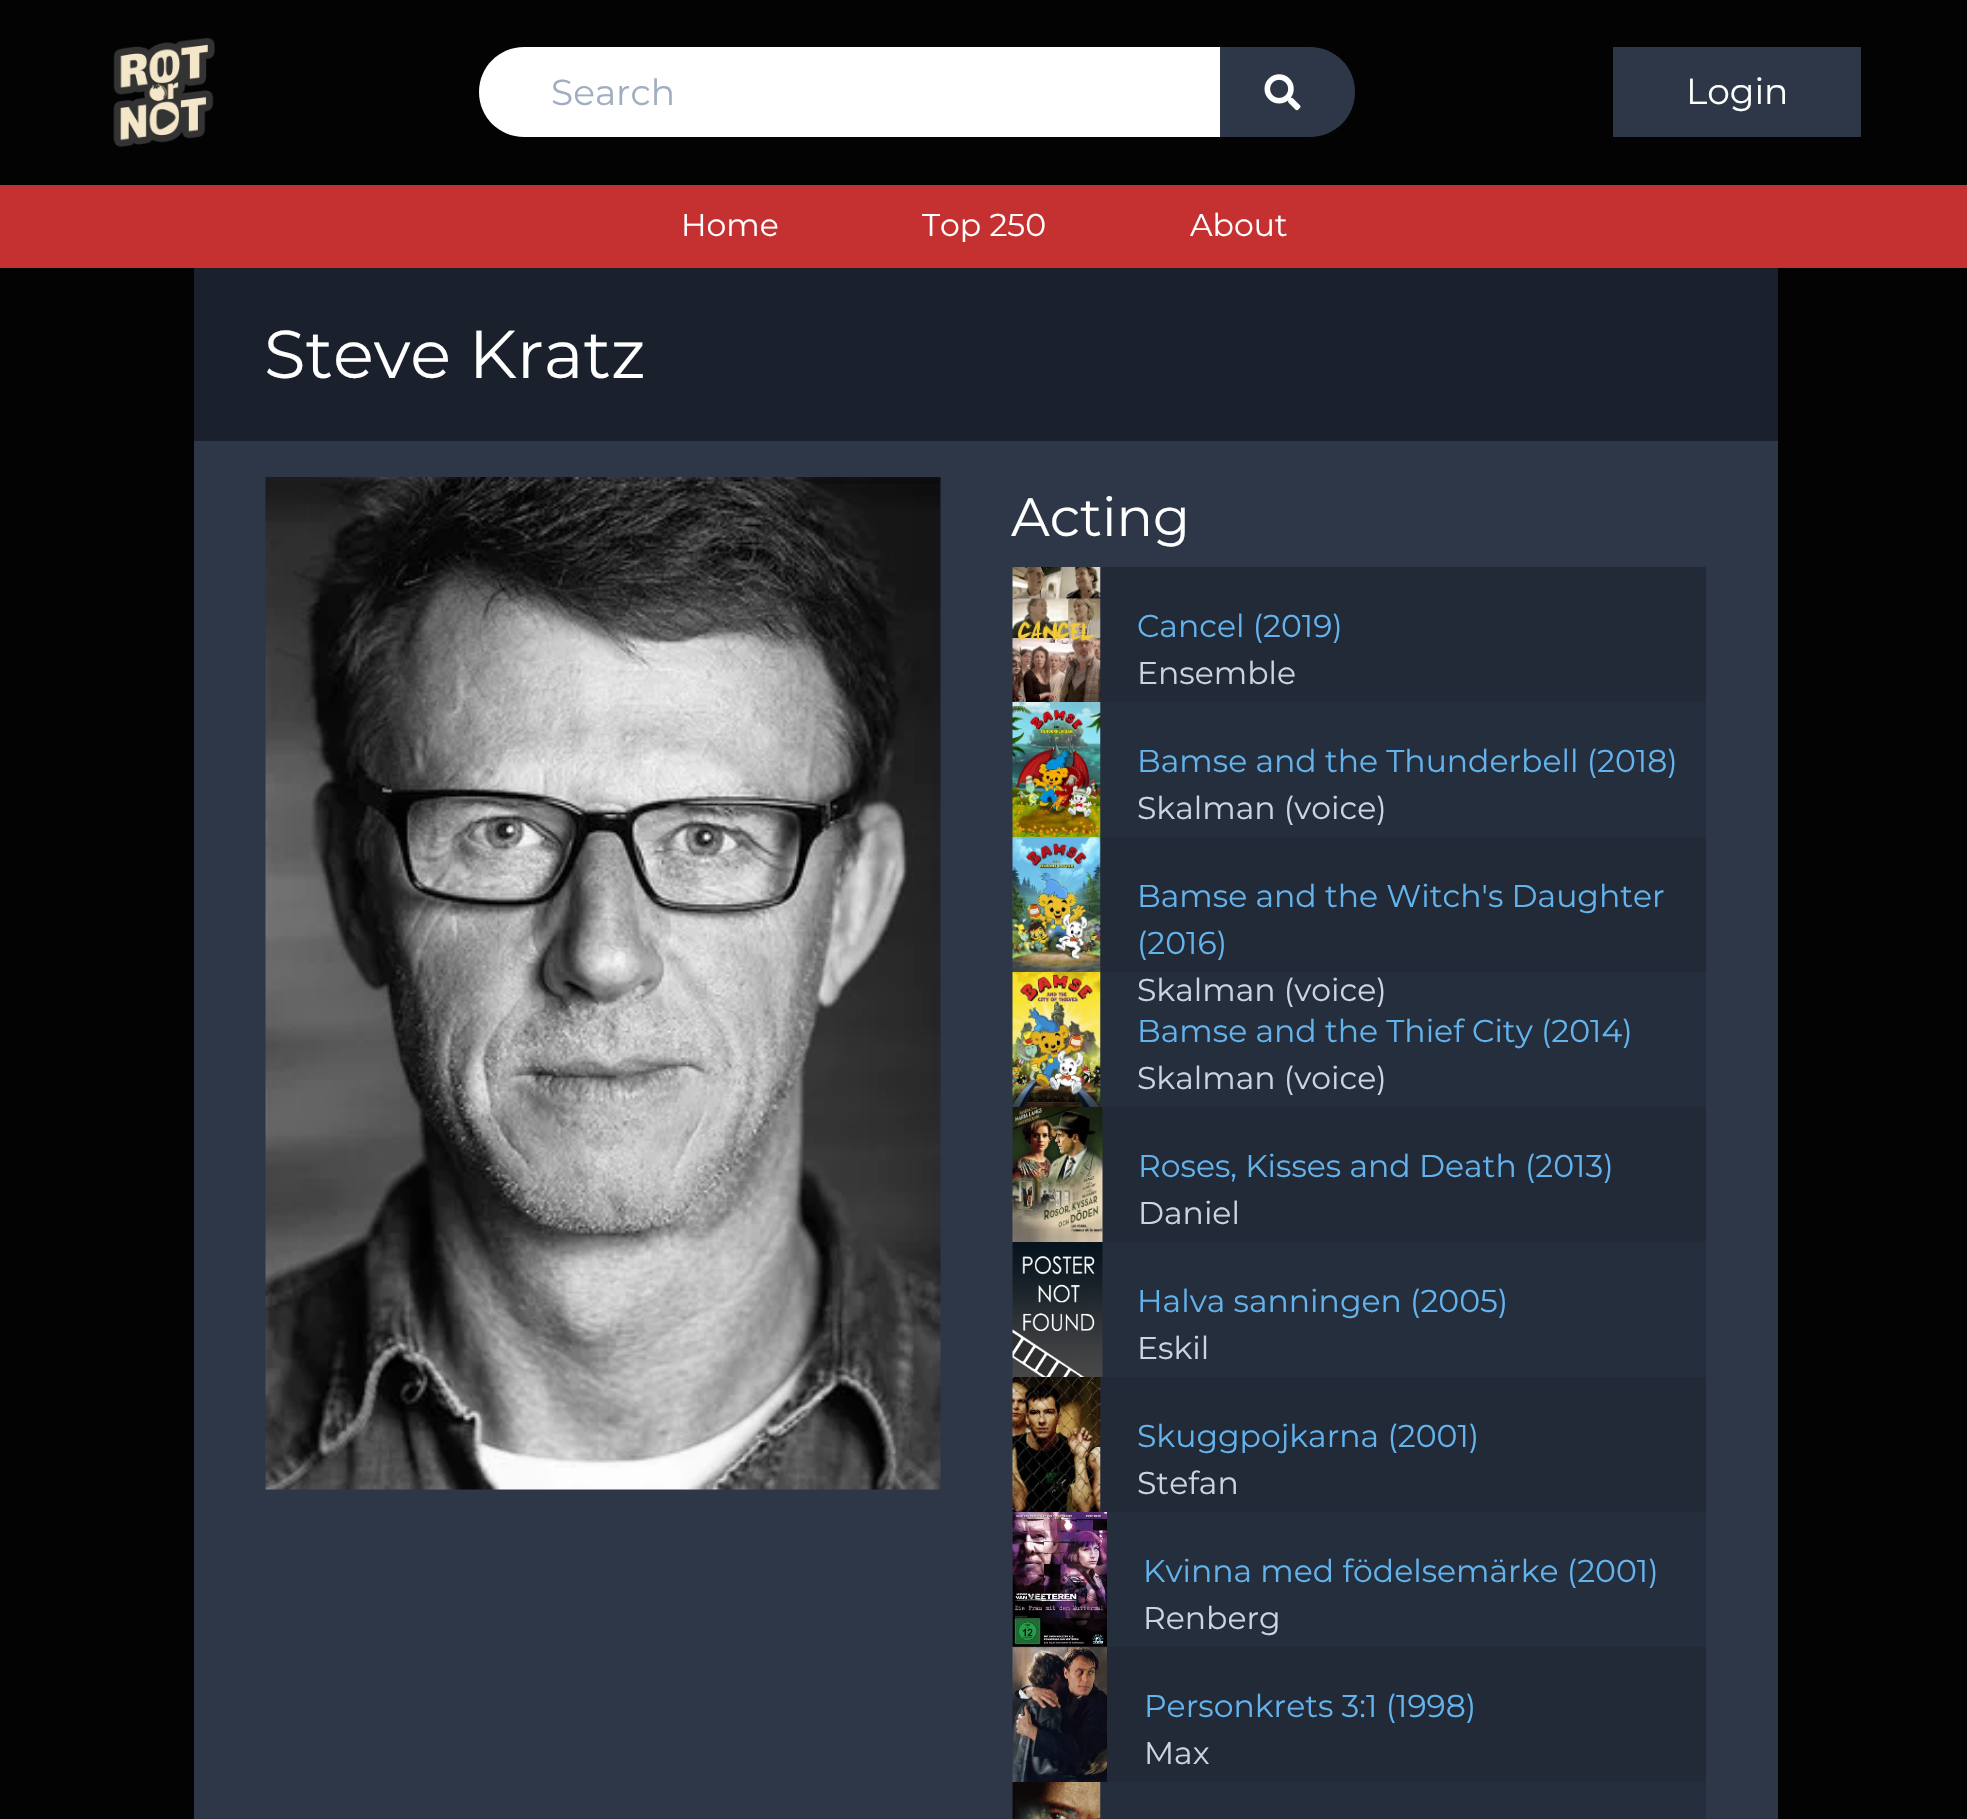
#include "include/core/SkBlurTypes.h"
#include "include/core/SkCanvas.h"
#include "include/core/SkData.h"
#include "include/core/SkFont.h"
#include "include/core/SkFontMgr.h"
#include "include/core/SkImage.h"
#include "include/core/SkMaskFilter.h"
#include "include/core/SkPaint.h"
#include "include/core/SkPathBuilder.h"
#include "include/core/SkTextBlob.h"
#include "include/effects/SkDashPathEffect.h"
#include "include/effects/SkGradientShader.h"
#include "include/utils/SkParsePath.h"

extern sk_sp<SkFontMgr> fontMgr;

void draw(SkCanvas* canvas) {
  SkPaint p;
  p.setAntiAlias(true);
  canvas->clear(SkColorSetRGB(3, 3, 3));
  canvas->drawImageRect(SkImages::DeferredFromEncodedData(SkData::MakeFromFileName("images/1.png")), SkRect::MakeLTRB(113, 37, 215, 147), SkSamplingOptions());
  p.setColor(SK_ColorWHITE);
  canvas->drawPath(SkPathBuilder().moveTo(524, 47).lineTo(1220, 47).lineTo(1220, 137).lineTo(524, 137).cubicTo(499, 137, 479, 117, 479, 92).cubicTo(479, 67, 499, 47, 524, 47).close().detach(), p);
  p.setColor(SkColorSetRGB(45, 55, 72));
  canvas->drawPath(SkPathBuilder().moveTo(1220, 47).lineTo(1310, 47).cubicTo(1335, 47, 1355, 67, 1355, 92).cubicTo(1355, 117, 1335, 137, 1310, 137).lineTo(1220, 137).close().detach(), p);
  canvas->drawImageRect(SkImages::DeferredFromEncodedData(SkData::MakeFromFileName("images/2.png")), SkRect::MakeLTRB(1264, 74, 1301, 111), SkSamplingOptions());
  canvas->drawRect(SkRect::MakeLTRB(1613, 47, 1861, 137), p);
  p.setColor(SkColorSetRGB(197, 48, 48));
  canvas->drawRect(SkRect::MakeLTRB(0, 185, 1967, 268), p);
  p.setColor(SkColorSetRGB(26, 32, 44));
  canvas->drawRect(SkRect::MakeLTRB(194, 268, 1778, 441), p);
  p.setColor(SkColorSetRGB(45, 55, 72));
  canvas->drawRect(SkRect::MakeLTRB(194, 441, 1778, 1819), p);
  canvas->drawImageRect(SkImages::DeferredFromEncodedData(SkData::MakeFromFileName("images/3.png")), SkRect::MakeLTRB(265, 477, 941, 1490), SkSamplingOptions());
  p.setColor(SkColorSetRGB(34, 41, 55));
  canvas->drawRect(SkRect::MakeLTRB(1100, 567, 1706, 702), p);
  canvas->drawImageRect(SkImages::DeferredFromEncodedData(SkData::MakeFromFileName("images/4.png")), SkRect::MakeLTRB(1012, 567, 1101, 702), SkSamplingOptions());
  p.setColor(SkColorSetRGB(37, 46, 61));
  canvas->drawRect(SkRect::MakeLTRB(1100, 702, 1706, 837), p);
  canvas->drawImageRect(SkImages::DeferredFromEncodedData(SkData::MakeFromFileName("images/5.png")), SkRect::MakeLTRB(1012, 702, 1101, 837), SkSamplingOptions());
  p.setColor(SkColorSetRGB(34, 41, 55));
  canvas->drawRect(SkRect::MakeLTRB(1100, 837, 1706, 972), p);
  canvas->drawImageRect(SkImages::DeferredFromEncodedData(SkData::MakeFromFileName("images/6.png")), SkRect::MakeLTRB(1012, 837, 1101, 972), SkSamplingOptions());
  p.setColor(SkColorSetRGB(37, 46, 61));
  canvas->drawRect(SkRect::MakeLTRB(1100, 972, 1706, 1107), p);
  canvas->drawImageRect(SkImages::DeferredFromEncodedData(SkData::MakeFromFileName("images/7.png")), SkRect::MakeLTRB(1012, 972, 1101, 1107), SkSamplingOptions());
  p.setColor(SkColorSetRGB(34, 41, 55));
  canvas->drawRect(SkRect::MakeLTRB(1102, 1107, 1706, 1242), p);
  canvas->drawImageRect(SkImages::DeferredFromEncodedData(SkData::MakeFromFileName("images/8.png")), SkRect::MakeLTRB(1012, 1107, 1103, 1242), SkSamplingOptions());
  p.setColor(SkColorSetRGB(37, 46, 61));
  canvas->drawRect(SkRect::MakeLTRB(1102, 1242, 1706, 1377), p);
  canvas->drawImageRect(SkImages::DeferredFromEncodedData(SkData::MakeFromFileName("images/9.png")), SkRect::MakeLTRB(1012, 1242, 1103, 1377), SkSamplingOptions());
  p.setColor(SkColorSetRGB(34, 41, 55));
  canvas->drawRect(SkRect::MakeLTRB(1100, 1377, 1706, 1512), p);
  canvas->drawImageRect(SkImages::DeferredFromEncodedData(SkData::MakeFromFileName("images/10.png")), SkRect::MakeLTRB(1012, 1377, 1101, 1512), SkSamplingOptions());
  p.setColor(SkColorSetRGB(37, 46, 61));
  canvas->drawRect(SkRect::MakeLTRB(1107, 1512, 1706, 1647), p);
  canvas->drawImageRect(SkImages::DeferredFromEncodedData(SkData::MakeFromFileName("images/11.png")), SkRect::MakeLTRB(1012, 1512, 1107, 1647), SkSamplingOptions());
  p.setColor(SkColorSetRGB(34, 41, 55));
  canvas->drawRect(SkRect::MakeLTRB(1107, 1647, 1706, 1782), p);
  canvas->drawImageRect(SkImages::DeferredFromEncodedData(SkData::MakeFromFileName("images/12.png")), SkRect::MakeLTRB(1012, 1647, 1107, 1782), SkSamplingOptions());
  p.setColor(SkColorSetRGB(37, 46, 61));
  canvas->drawRect(SkRect::MakeLTRB(1100, 1782, 1706, 1819), p);
  canvas->drawImageRect(SkImages::DeferredFromEncodedData(SkData::MakeFromFileName("images/13.png")), SkRect::MakeLTRB(1012, 1782, 1101, 1819), SkSamplingOptions());
  SkFont font1(fontMgr->matchFamilyStyle("Montserrat", SkFontStyle::Normal()), 36);
  font1.setSubpixel(true);
  p.setColor(SkColorSetRGB(160, 174, 192));
  canvas->drawString("Search", 551, 105, font1, p);
  p.setColor(SK_ColorWHITE);
  canvas->drawString("Login", 1686, 104, font1, p);
  SkFont font2(fontMgr->matchFamilyStyle("Montserrat", SkFontStyle::Normal()), 31.5f);
  font2.setSubpixel(true);
  canvas->drawString("Home", 681, 236, font2, p);
  canvas->drawString("Top 250", 922, 236, font2, p);
  canvas->drawString("About", 1190, 236, font2, p);
  SkFont font3(fontMgr->matchFamilyStyle("Montserrat", SkFontStyle::Normal()), 67.5f);
  font3.setSubpixel(true);
  canvas->drawString("Steve Kratz", 264, 378, font3, p);
  SkFont font4(fontMgr->matchFamilyStyle("Montserrat", SkFontStyle::Normal()), 54);
  font4.setSubpixel(true);
  canvas->drawString("Acting", 1011, 536, font4, p);
  p.setColor(SkColorSetRGB(99, 179, 237));
  canvas->drawString("Cancel (2019)", 1137, 637, font2, p);
  p.setColor(SkColorSetRGB(203, 213, 224));
  canvas->drawString("Ensemble", 1137, 684, font2, p);
  p.setColor(SkColorSetRGB(99, 179, 237));
  canvas->drawString("Bamse and the Thunderbell (2018)", 1137, 772, font2, p);
  p.setColor(SkColorSetRGB(203, 213, 224));
  canvas->drawString("Skalman (voice)", 1137, 819, font2, p);
  p.setColor(SkColorSetRGB(99, 179, 237));
  canvas->drawString("Bamse and the Witch's Daughter", 1137, 907, font2, p);
  canvas->drawString("(2016)", 1137, 954, font2, p);
  p.setColor(SkColorSetRGB(203, 213, 224));
  canvas->drawString("Skalman (voice)", 1137, 1001, font2, p);
  p.setColor(SkColorSetRGB(99, 179, 237));
  canvas->drawString("Bamse and the Thief City (2014)", 1137, 1042, font2, p);
  p.setColor(SkColorSetRGB(203, 213, 224));
  canvas->drawString("Skalman (voice)", 1137, 1089, font2, p);
  p.setColor(SkColorSetRGB(99, 179, 237));
  canvas->drawString("Roses, Kisses and Death (2013)", 1138, 1177, font2, p);
  p.setColor(SkColorSetRGB(203, 213, 224));
  canvas->drawString("Daniel", 1138, 1224, font2, p);
  p.setColor(SkColorSetRGB(99, 179, 237));
  canvas->drawString("Halva sanningen (2005)", 1137, 1312, font2, p);
  p.setColor(SkColorSetRGB(203, 213, 224));
  canvas->drawString("Eskil", 1137, 1359, font2, p);
  p.setColor(SkColorSetRGB(99, 179, 237));
  canvas->drawString("Skuggpojkarna (2001)", 1137, 1447, font2, p);
  p.setColor(SkColorSetRGB(203, 213, 224));
  canvas->drawString("Stefan", 1137, 1494, font2, p);
  p.setColor(SkColorSetRGB(99, 179, 237));
  canvas->drawString("Kvinna med födelsemärke (2001)", 1143, 1582, font2, p);
  p.setColor(SkColorSetRGB(203, 213, 224));
  canvas->drawString("Renberg", 1143, 1629, font2, p);
  p.setColor(SkColorSetRGB(99, 179, 237));
  canvas->drawString("Personkrets 3:1 (1998)", 1144, 1717, font2, p);
  p.setColor(SkColorSetRGB(203, 213, 224));
  canvas->drawString("Max", 1144, 1764, font2, p);
}
